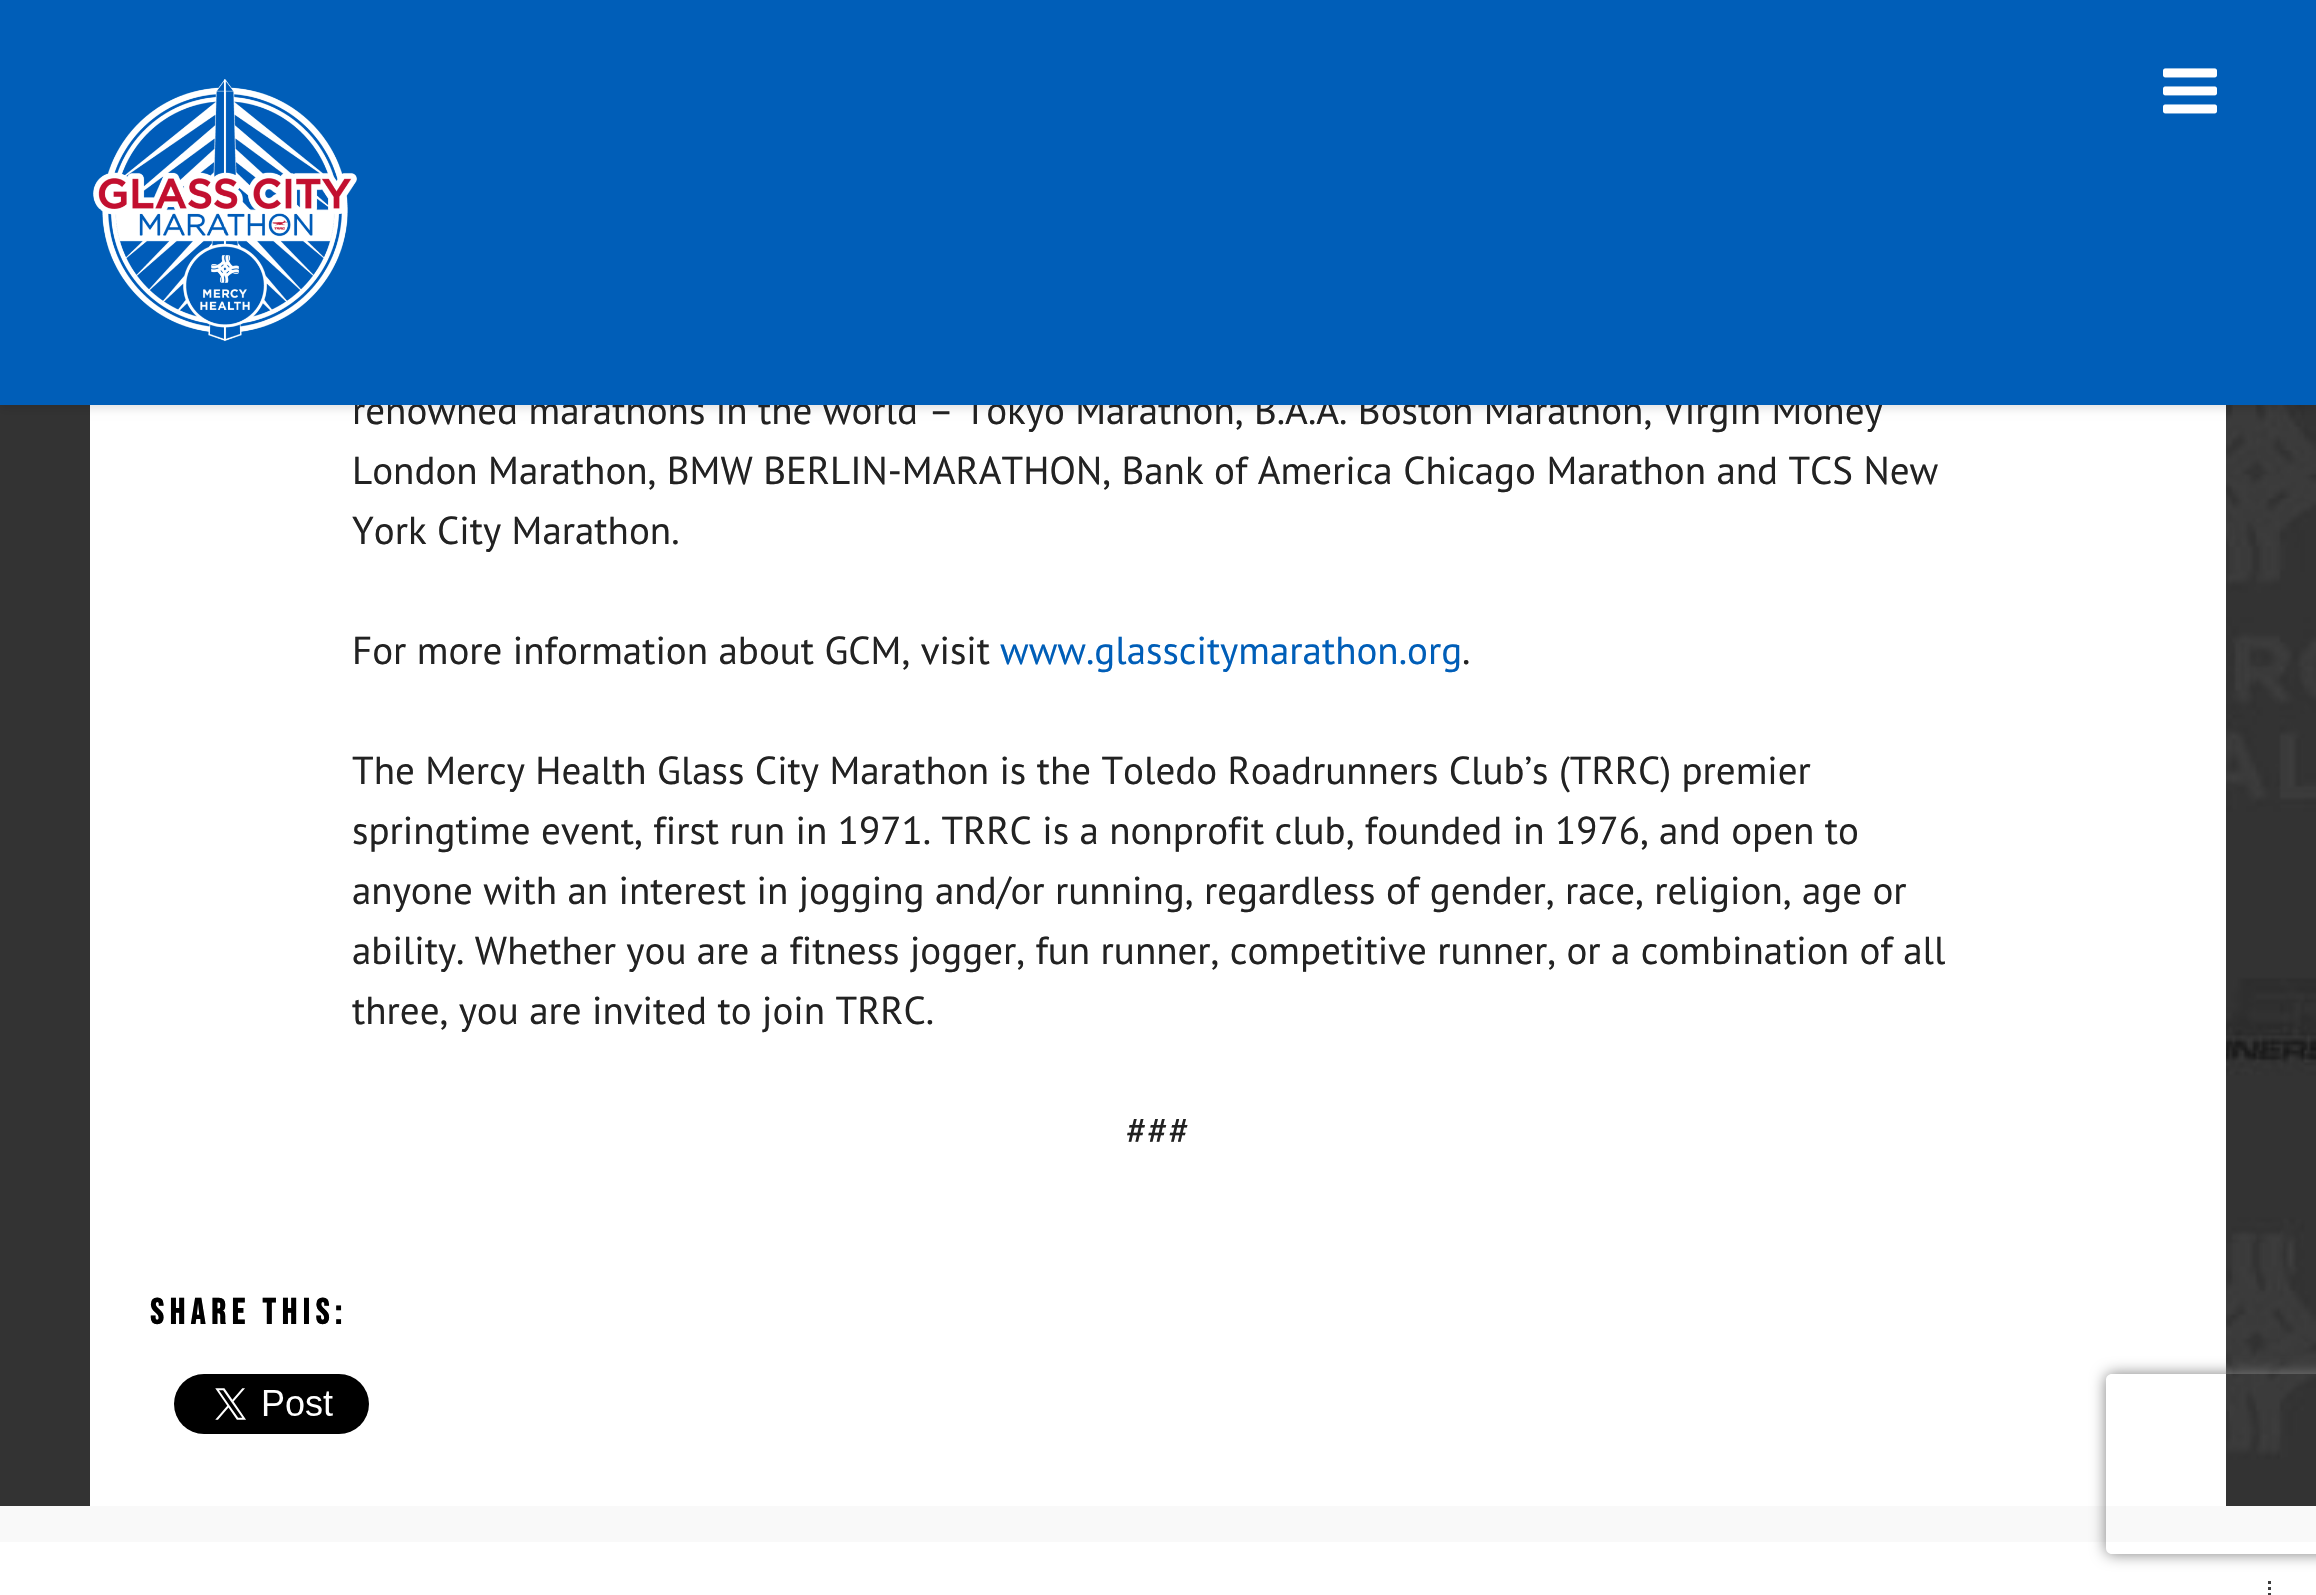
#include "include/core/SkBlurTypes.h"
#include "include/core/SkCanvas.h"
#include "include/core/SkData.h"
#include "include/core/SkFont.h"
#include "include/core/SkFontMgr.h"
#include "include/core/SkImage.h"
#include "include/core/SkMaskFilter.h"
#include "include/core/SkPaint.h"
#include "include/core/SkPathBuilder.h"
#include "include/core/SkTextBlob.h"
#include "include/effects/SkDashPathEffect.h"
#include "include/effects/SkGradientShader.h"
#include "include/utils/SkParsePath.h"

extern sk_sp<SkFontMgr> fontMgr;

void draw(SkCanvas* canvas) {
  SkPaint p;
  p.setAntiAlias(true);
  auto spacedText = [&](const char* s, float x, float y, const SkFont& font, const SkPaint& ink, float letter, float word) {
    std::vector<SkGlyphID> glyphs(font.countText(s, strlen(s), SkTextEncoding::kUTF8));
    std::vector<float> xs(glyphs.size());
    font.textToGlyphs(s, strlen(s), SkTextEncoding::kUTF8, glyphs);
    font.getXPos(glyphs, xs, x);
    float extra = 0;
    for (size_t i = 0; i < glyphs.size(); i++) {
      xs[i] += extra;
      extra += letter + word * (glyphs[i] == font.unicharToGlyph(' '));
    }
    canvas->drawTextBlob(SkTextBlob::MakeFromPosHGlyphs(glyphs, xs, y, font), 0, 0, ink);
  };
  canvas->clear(SK_ColorWHITE);
  canvas->drawImageRect(SkImages::DeferredFromEncodedData(SkData::MakeFromFileName("images/3.png")), SkRect::MakeLTRB(0, 405, 2316, 1506), SkSamplingOptions());
  p.setColor(SK_ColorWHITE);
  canvas->drawRect(SkRect::MakeLTRB(90, 405, 2226, 1506), p);
  p.setColor(SkColorSetARGB(31, 0, 0, 0));
  p.setMaskFilter(SkMaskFilter::MakeBlur(kNormal_SkBlurStyle, 4.5f));
  canvas->drawRect(SkRect::MakeLTRB(0, 3, 2316, 408), p);
  p.setMaskFilter(nullptr);
  canvas->drawImageRect(SkImages::DeferredFromEncodedData(SkData::MakeFromFileName("images/4.png")), SkRect::MakeLTRB(174, 1374, 369, 1434), SkSamplingOptions());
  p.setColor(SkColorSetRGB(249, 249, 249));
  canvas->drawRect(SkRect::MakeLTRB(0, 1506, 2316, 1542), p);
  p.setStyle(SkPaint::kStroke_Style);
  p.setStrokeWidth(3);
  p.setColor(SkColorSetRGB(61, 61, 61));
  p.setPathEffect(SkDashPathEffect::Make({{3, 3}}, 0));
  canvas->drawPath(SkPathBuilder().moveTo(2269.5f, 1581).lineTo(2269.5f, 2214).detach(), p);
  p.setPathEffect(nullptr);
  canvas->save();
  canvas->clipPath(SkPathBuilder(SkPathFillType::kEvenOdd).moveTo(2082, 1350).lineTo(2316, 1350).lineTo(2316, 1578).lineTo(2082, 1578).close().moveTo(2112, 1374).lineTo(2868, 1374).cubicTo(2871.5f, 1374, 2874, 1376.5f, 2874, 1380).lineTo(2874, 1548).cubicTo(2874, 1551.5f, 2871.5f, 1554, 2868, 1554).lineTo(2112, 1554).cubicTo(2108.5f, 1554, 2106, 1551.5f, 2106, 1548).lineTo(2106, 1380).cubicTo(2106, 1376.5f, 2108.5f, 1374, 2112, 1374).close().detach(), true);
  p.setStyle(SkPaint::kFill_Style);
  p.setColor(SkColorSetRGB(128, 128, 128));
  p.setMaskFilter(SkMaskFilter::MakeBlur(kNormal_SkBlurStyle, 7.5f));
  canvas->drawRoundRect(SkRect::MakeLTRB(2106, 1374, 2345, 1554), 6, 6, p);
  p.setMaskFilter(nullptr);
  canvas->restore();
  SkFont font1(fontMgr->matchFamilyStyle("PT Sans", SkFontStyle::Normal()), 39);
  font1.setSubpixel(true);
  p.setColor(SkColorSetRGB(34, 34, 34));
  canvas->drawString("renowned marathons in the world – Tokyo Marathon, B.A.A. Boston Marathon, Virgin Money", 352, 424, font1, p);
  p.setColor(SkColorSetRGB(0, 94, 184));
  canvas->drawRect(SkRect::MakeLTRB(0, 0, 2316, 405), p);
  canvas->drawImageRect(SkImages::DeferredFromEncodedData(SkData::MakeFromFileName("images/2.png")), SkRect::MakeLTRB(2163, 68, 2217, 114), SkSamplingOptions());
  canvas->drawImageRect(SkImages::DeferredFromEncodedData(SkData::MakeFromFileName("images/1.png")), SkRect::MakeLTRB(93, 79, 357, 342), SkSamplingOptions());
  p.setColor(SkColorSetRGB(34, 34, 34));
  canvas->drawString("London Marathon, BMW BERLIN-MARATHON, Bank of America Chicago Marathon and TCS New", 352, 484, font1, p);
  canvas->drawString("York City Marathon.", 352, 544, font1, p);
  canvas->drawString("For more information about GCM, visit", 352, 664, font1, p);
  p.setColor(SkColorSetRGB(0, 94, 184));
  canvas->drawString("www.glasscitymarathon.org", 1000, 664, font1, p);
  p.setColor(SkColorSetRGB(34, 34, 34));
  canvas->drawString(".", 1462, 664, font1, p);
  canvas->drawString("The Mercy Health Glass City Marathon is the Toledo Roadrunners Club’s (TRRC) premier", 352, 784, font1, p);
  canvas->drawString("springtime event, first run in 1971. TRRC is a nonprofit club, founded in 1976, and open to", 352, 844, font1, p);
  canvas->drawString("anyone with an interest in jogging and/or running, regardless of gender, race, religion, age or", 352, 904, font1, p);
  canvas->drawString("ability. Whether you are a fitness jogger, fun runner, competitive runner, or a combination of all", 352, 964, font1, p);
  canvas->drawString("three, you are invited to join TRRC.", 352, 1024, font1, p);
  canvas->drawString("###", 1126, 1144, font1, p);
  SkFont font2(fontMgr->matchFamilyStyle("Bebas Neue", SkFontStyle::Bold()), 36);
  font2.setSubpixel(true);
  p.setColor(SK_ColorBLACK);
  spacedText("Share this:", 150, 1324, font2, p, 6, 0);
}
